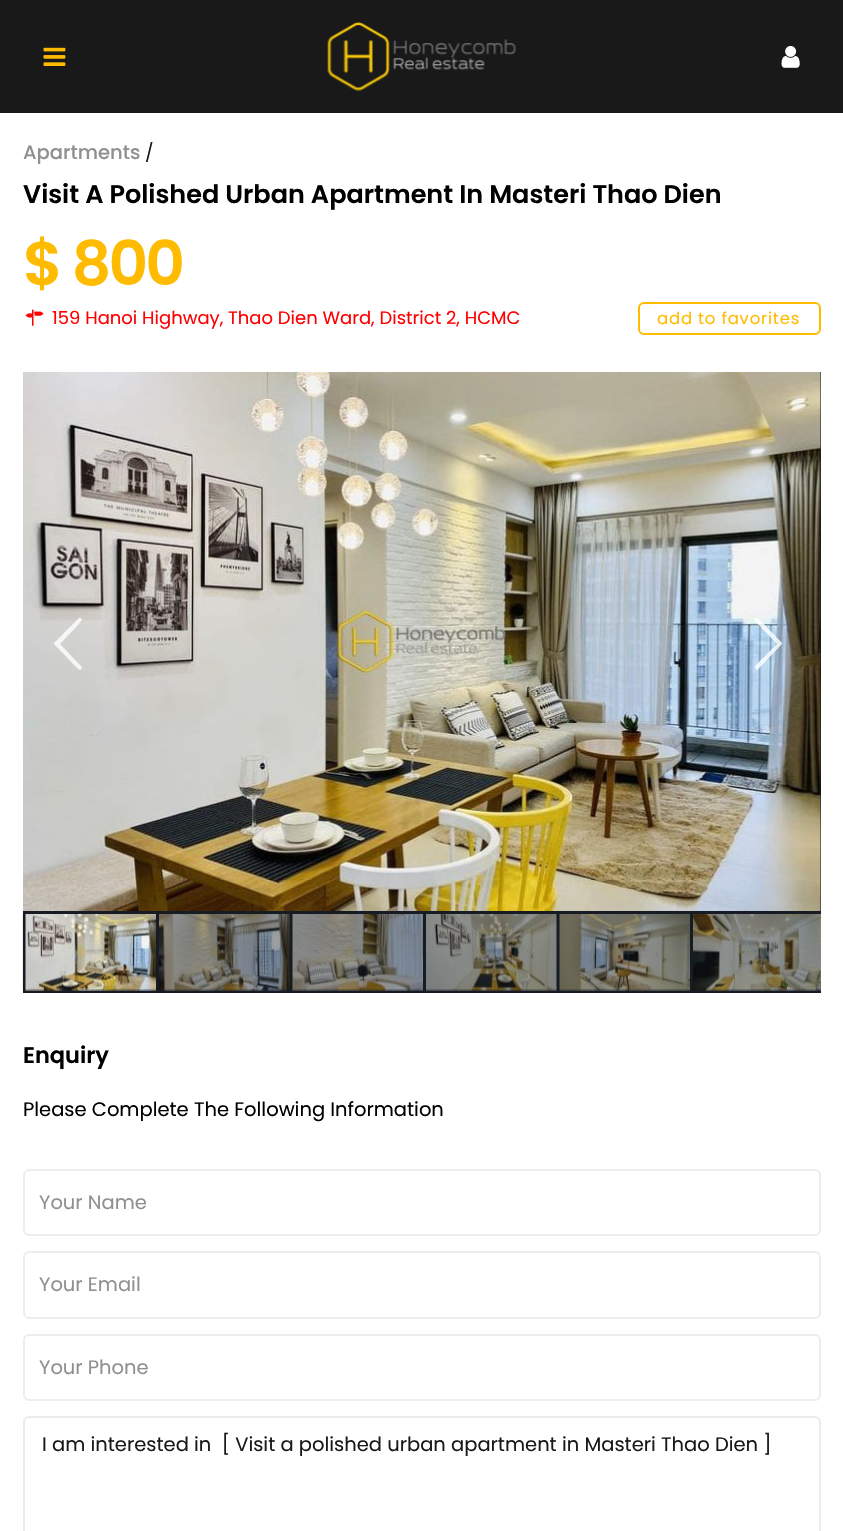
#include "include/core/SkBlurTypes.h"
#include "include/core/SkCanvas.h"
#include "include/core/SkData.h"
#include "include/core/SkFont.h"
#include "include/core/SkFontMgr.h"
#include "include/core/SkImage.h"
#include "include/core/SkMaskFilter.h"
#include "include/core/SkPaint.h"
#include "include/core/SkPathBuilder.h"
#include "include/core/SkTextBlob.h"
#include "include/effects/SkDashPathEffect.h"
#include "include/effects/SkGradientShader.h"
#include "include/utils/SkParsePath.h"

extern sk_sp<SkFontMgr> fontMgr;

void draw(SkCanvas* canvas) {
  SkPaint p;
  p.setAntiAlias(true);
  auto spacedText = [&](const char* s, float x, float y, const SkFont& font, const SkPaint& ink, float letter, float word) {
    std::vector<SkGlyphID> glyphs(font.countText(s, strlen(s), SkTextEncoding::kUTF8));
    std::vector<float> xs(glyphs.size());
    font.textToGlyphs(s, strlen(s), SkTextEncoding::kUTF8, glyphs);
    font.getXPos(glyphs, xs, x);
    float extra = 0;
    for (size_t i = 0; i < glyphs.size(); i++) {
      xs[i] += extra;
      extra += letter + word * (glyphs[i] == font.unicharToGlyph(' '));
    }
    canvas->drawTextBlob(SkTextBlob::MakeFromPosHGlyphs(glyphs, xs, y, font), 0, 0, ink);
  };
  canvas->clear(SK_ColorWHITE);
  p.setColor(SkColorSetRGB(25, 25, 25));
  canvas->drawRect(SkRect::MakeLTRB(0, 0, 843, 113), p);
  canvas->drawImageRect(SkImages::DeferredFromEncodedData(SkData::MakeFromFileName("images/1.png")), SkRect::MakeLTRB(43, 47, 66, 66), SkSamplingOptions());
  canvas->drawImageRect(SkImages::DeferredFromEncodedData(SkData::MakeFromFileName("images/2.png")), SkRect::MakeLTRB(327, 22, 517, 92), SkSamplingOptions());
  canvas->drawImageRect(SkImages::DeferredFromEncodedData(SkData::MakeFromFileName("images/3.png")), SkRect::MakeLTRB(781, 46, 800, 68), SkSamplingOptions());
  canvas->drawImageRect(SkImages::DeferredFromEncodedData(SkData::MakeFromFileName("images/4.png")), SkRect::MakeLTRB(25, 309, 44, 326), SkSamplingOptions());
  p.setStyle(SkPaint::kStroke_Style);
  p.setStrokeWidth(2);
  p.setColor(SkColorSetRGB(255, 187, 0));
  canvas->drawRoundRect(SkRect::MakeLTRB(639, 303, 820, 334), 5, 5, p);
  p.setStyle(SkPaint::kFill_Style);
  p.setColor(SkColorSetRGB(23, 28, 36));
  canvas->drawRect(SkRect::MakeLTRB(23, 372, 821, 993), p);
  canvas->drawImageRect(SkImages::DeferredFromEncodedData(SkData::MakeFromFileName("images/5.png")), SkRect::MakeLTRB(23, 372, 821, 911), SkSamplingOptions());
  p.setColor(SkColorSetARGB(204, 255, 255, 255));
  canvas->drawPath(SkPathBuilder().moveTo(81, 666).lineTo(82, 668).cubicTo(80, 673, 75, 665, 74, 665).lineTo(54, 644).lineTo(54, 643).lineTo(79, 618).lineTo(80, 618).cubicTo(85, 619, 78, 624, 78, 625).lineTo(60, 644).close().detach(), p);
  canvas->drawPath(SkPathBuilder().moveTo(755, 666).lineTo(777, 644).lineTo(759, 625).cubicTo(758, 624, 751, 619, 756, 618).lineTo(758, 618).lineTo(782, 643).lineTo(782, 644).lineTo(762, 665).cubicTo(762, 665, 756, 673, 755, 668).close().detach(), p);
  canvas->drawImageRect(SkImages::DeferredFromEncodedData(SkData::MakeFromFileName("images/6.png")), SkRect::MakeLTRB(22, 914, 23, 991), SkSamplingOptions());
  canvas->drawImageRect(SkImages::DeferredFromEncodedData(SkData::MakeFromFileName("images/7.png")), SkRect::MakeLTRB(25, 914, 156, 991), SkSamplingOptions());
  canvas->drawImageRect(SkImages::DeferredFromEncodedData(SkData::MakeFromFileName("images/8.png")), SkRect::MakeLTRB(159, 914, 290, 991), SkSamplingOptions());
  canvas->drawImageRect(SkImages::DeferredFromEncodedData(SkData::MakeFromFileName("images/9.png")), SkRect::MakeLTRB(292, 914, 423, 991), SkSamplingOptions());
  canvas->drawImageRect(SkImages::DeferredFromEncodedData(SkData::MakeFromFileName("images/10.png")), SkRect::MakeLTRB(426, 914, 557, 991), SkSamplingOptions());
  canvas->drawImageRect(SkImages::DeferredFromEncodedData(SkData::MakeFromFileName("images/11.png")), SkRect::MakeLTRB(559, 914, 690, 991), SkSamplingOptions());
  canvas->drawImageRect(SkImages::DeferredFromEncodedData(SkData::MakeFromFileName("images/12.png")), SkRect::MakeLTRB(693, 914, 821, 991), SkSamplingOptions());
  p.setStyle(SkPaint::kStroke_Style);
  p.setColor(SkColorSetRGB(237, 237, 237));
  canvas->drawRoundRect(SkRect::MakeLTRB(24, 1170, 820, 1235), 5, 5, p);
  canvas->drawRoundRect(SkRect::MakeLTRB(24, 1252, 820, 1318), 5, 5, p);
  canvas->drawRoundRect(SkRect::MakeLTRB(24, 1335, 820, 1400), 5, 5, p);
  p.setColor(SkColorSetRGB(235, 235, 235));
  canvas->drawRoundRect(SkRect::MakeLTRB(24, 1417, 820, 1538), 5, 5, p);
  SkFont font1(fontMgr->matchFamilyStyle("Poppins", SkFontStyle(500, SkFontStyle::kNormal_Width, SkFontStyle::kUpright_Slant)), 19.5f);
  font1.setSubpixel(true);
  p.setStyle(SkPaint::kFill_Style);
  p.setColor(SkColorSetRGB(144, 144, 144));
  canvas->drawString("Apartments", 23, 159, font1, p);
  SkFont font2(fontMgr->matchFamilyStyle("Poppins", SkFontStyle::Normal()), 18);
  font2.setSubpixel(true);
  p.setColor(SkColorSetRGB(25, 25, 25));
  canvas->drawString("/", 145, 159, font2, p);
  SkFont font3(fontMgr->matchFamilyStyle("Poppins", SkFontStyle(600, SkFontStyle::kNormal_Width, SkFontStyle::kUpright_Slant)), 25.5f);
  font3.setSubpixel(true);
  p.setColor(SK_ColorBLACK);
  canvas->drawString("Visit A Polished Urban Apartment In Masteri Thao Dien", 23, 203, font3, p);
  SkFont font4(fontMgr->matchFamilyStyle("Poppins", SkFontStyle(600, SkFontStyle::kNormal_Width, SkFontStyle::kUpright_Slant)), 61.5f);
  font4.setSubpixel(true);
  p.setColor(SkColorSetRGB(255, 187, 0));
  spacedText("$ 800", 23, 285, font4, p, -3, 0);
  p.setColor(SkColorSetRGB(255, 0, 0));
  canvas->drawString("159 Hanoi Highway, Thao Dien Ward, District 2, HCMC", 52, 324, font2, p);
  SkFont font5(fontMgr->matchFamilyStyle("Poppins", SkFontStyle::Normal()), 16.5f);
  font5.setSubpixel(true);
  p.setColor(SkColorSetRGB(255, 187, 0));
  spacedText("add to favorites", 657, 324, font5, p, 0.8f, 0);
  SkFont font6(fontMgr->matchFamilyStyle("Poppins", SkFontStyle(600, SkFontStyle::kNormal_Width, SkFontStyle::kUpright_Slant)), 22.5f);
  font6.setSubpixel(true);
  p.setColor(SK_ColorBLACK);
  canvas->drawString("Enquiry", 23, 1063, font6, p);
  SkFont font7(fontMgr->matchFamilyStyle("Poppins", SkFontStyle::Normal()), 19.5f);
  font7.setSubpixel(true);
  canvas->drawString("Please Complete The Following Information", 23, 1116, font7, p);
  p.setColor(SkColorSetRGB(144, 144, 144));
  canvas->drawString("Your Name", 39, 1209, font7, p);
  canvas->drawString("Your Email", 39, 1291, font7, p);
  canvas->drawString("Your Phone", 39, 1374, font7, p);
  p.setColor(SkColorSetRGB(25, 25, 25));
  canvas->drawString("I am interested in  [ Visit a polished urban apartment in Masteri Thao Dien ]", 42, 1451, font7, p);
}
